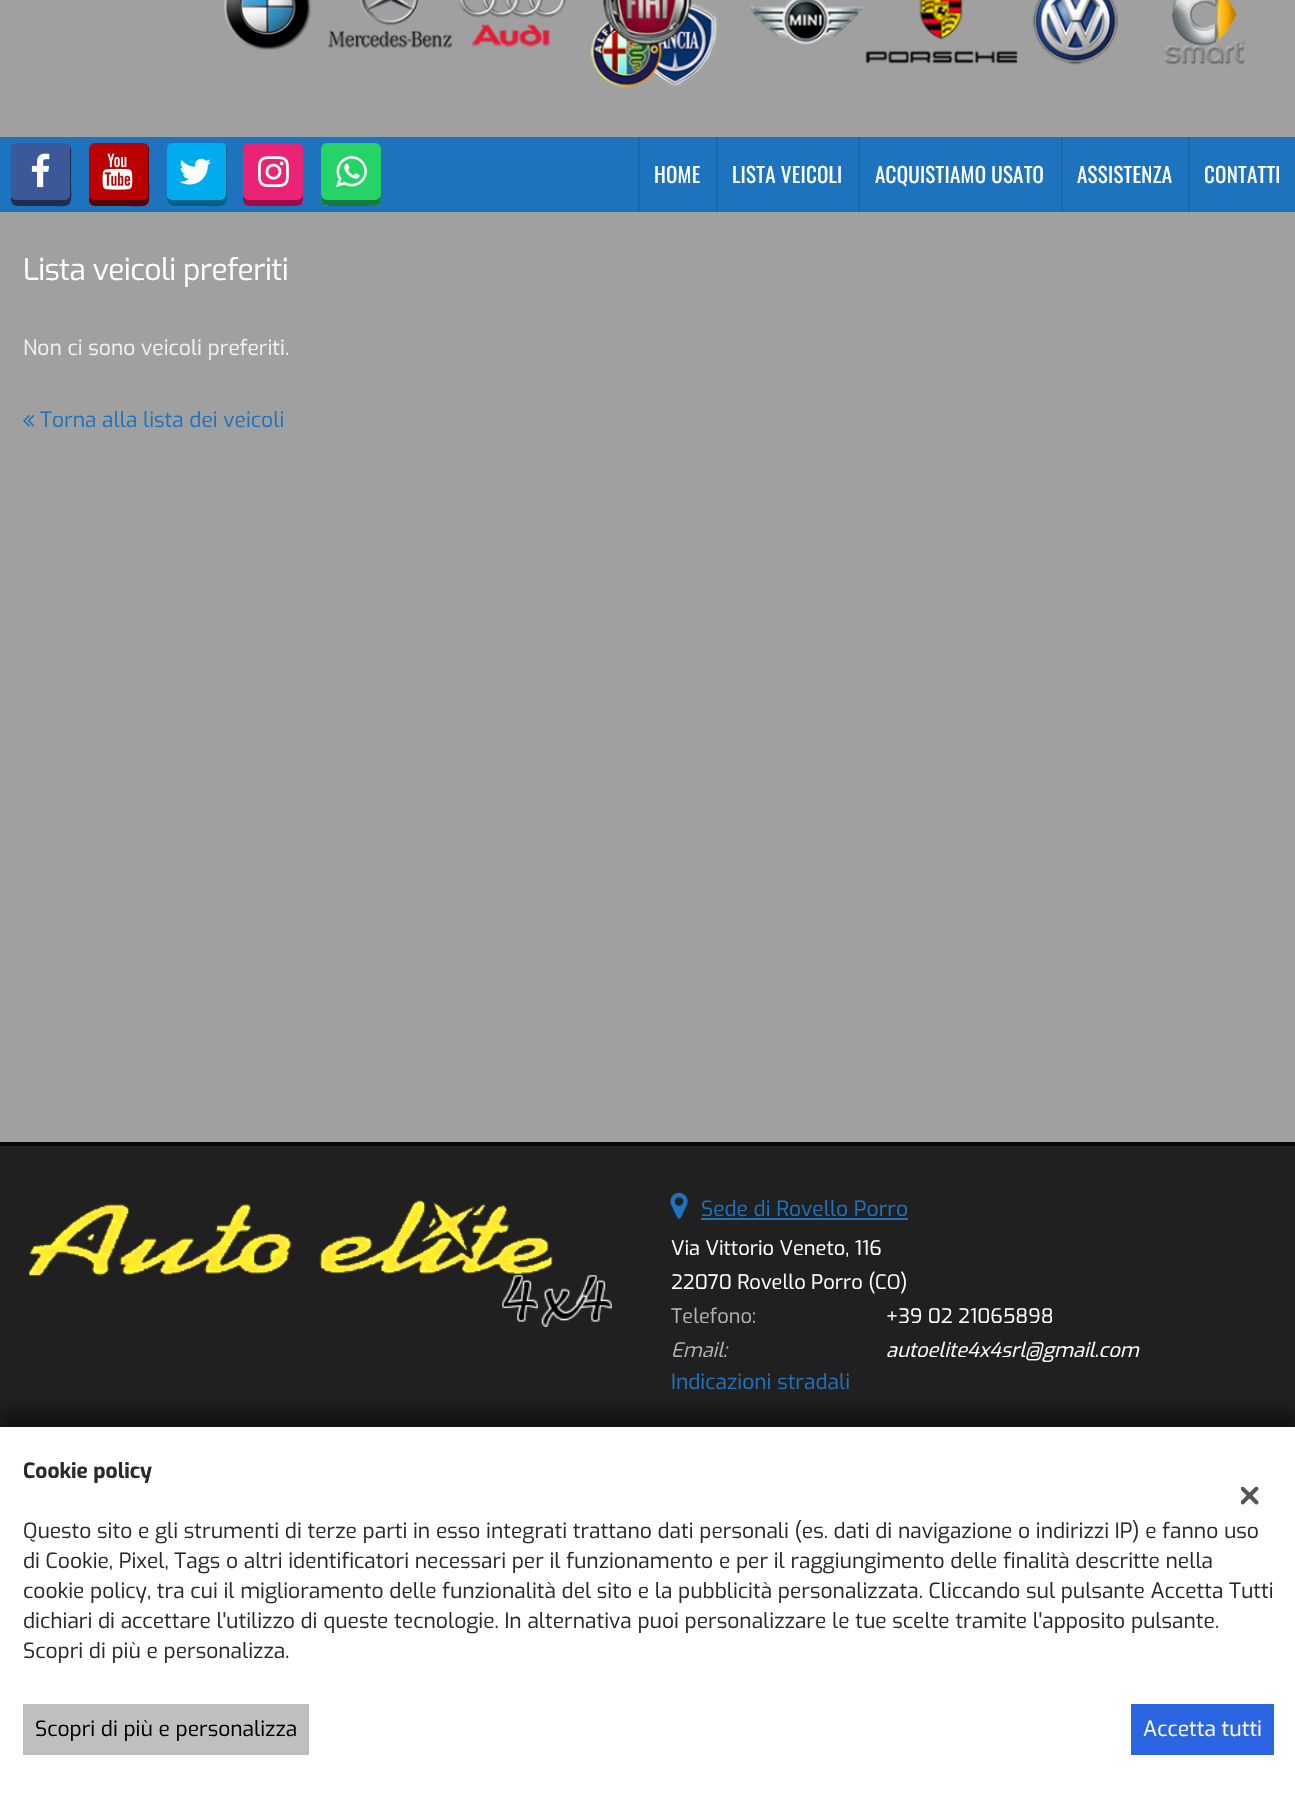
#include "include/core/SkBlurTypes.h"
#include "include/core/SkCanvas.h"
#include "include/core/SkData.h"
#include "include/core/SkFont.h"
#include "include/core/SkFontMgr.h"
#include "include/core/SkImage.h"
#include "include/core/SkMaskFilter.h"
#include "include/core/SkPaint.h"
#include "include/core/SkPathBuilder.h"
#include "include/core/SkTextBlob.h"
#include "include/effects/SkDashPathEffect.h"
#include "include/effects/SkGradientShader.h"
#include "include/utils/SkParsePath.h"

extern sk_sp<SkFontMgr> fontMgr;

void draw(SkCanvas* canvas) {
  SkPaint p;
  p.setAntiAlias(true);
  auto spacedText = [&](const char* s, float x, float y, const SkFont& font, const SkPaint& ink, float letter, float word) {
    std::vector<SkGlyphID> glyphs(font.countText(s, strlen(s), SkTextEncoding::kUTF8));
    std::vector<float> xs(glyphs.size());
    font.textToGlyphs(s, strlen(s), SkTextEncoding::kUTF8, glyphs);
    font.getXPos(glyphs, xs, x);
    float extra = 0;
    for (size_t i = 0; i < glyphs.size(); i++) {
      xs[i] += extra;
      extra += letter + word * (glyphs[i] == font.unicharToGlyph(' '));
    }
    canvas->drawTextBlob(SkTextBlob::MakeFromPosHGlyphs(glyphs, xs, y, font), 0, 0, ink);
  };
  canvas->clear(SkColorSetRGB(160, 160, 160));
  canvas->drawImageRect(SkImages::DeferredFromEncodedData(SkData::MakeFromFileName("images/1.png")), SkRect::MakeLTRB(224, 0, 1245, 88), SkSamplingOptions());
  p.setColor(SkColorSetRGB(30, 115, 190));
  canvas->drawRect(SkRect::MakeLTRB(0, 137, 1295, 212), p);
  p.setColor(SkColorSetRGB(59, 89, 152));
  canvas->drawRoundRect(SkRect::MakeLTRB(11, 143, 71, 206), 6, 6, p);
  p.setColor(SkColorSetRGB(30, 46, 79));
  canvas->drawPath(SkPathBuilder().moveTo(11, 197).cubicTo(11, 207, 16, 206, 25, 206).lineTo(41, 206).cubicTo(77, 206, 71, 211, 71, 174).lineTo(71, 158).cubicTo(71, 155, 72, 149, 70, 146).lineTo(70, 194).cubicTo(70, 197, 68, 200, 64, 200).lineTo(16, 200).cubicTo(14, 200, 12, 199, 11, 197).close().detach(), p);
  canvas->drawImageRect(SkImages::DeferredFromEncodedData(SkData::MakeFromFileName("images/2.png")), SkRect::MakeLTRB(31, 153, 50, 188), SkSamplingOptions());
  p.setColor(SkColorSetRGB(187, 0, 0));
  canvas->drawRoundRect(SkRect::MakeLTRB(89, 143, 149, 206), 6, 6, p);
  p.setColor(SkColorSetRGB(85, 0, 0));
  canvas->drawPath(SkPathBuilder().moveTo(89, 197).cubicTo(89, 207, 94, 206, 103, 206).lineTo(119, 206).cubicTo(155, 206, 149, 211, 149, 174).lineTo(149, 158).cubicTo(149, 155, 150, 149, 148, 146).lineTo(148, 194).cubicTo(148, 197, 146, 200, 142, 200).lineTo(94, 200).cubicTo(92, 200, 90, 199, 89, 197).close().detach(), p);
  canvas->drawImageRect(SkImages::DeferredFromEncodedData(SkData::MakeFromFileName("images/3.png")), SkRect::MakeLTRB(102, 153, 133, 190), SkSamplingOptions());
  p.setColor(SkColorSetRGB(0, 172, 237));
  canvas->drawRoundRect(SkRect::MakeLTRB(167, 143, 227, 206), 6, 6, p);
  p.setColor(SkColorSetRGB(0, 98, 135));
  canvas->drawPath(SkPathBuilder().moveTo(167, 197).cubicTo(167, 207, 172, 206, 181, 206).lineTo(197, 206).cubicTo(233, 206, 227, 211, 227, 174).lineTo(227, 158).cubicTo(227, 155, 228, 149, 226, 146).lineTo(226, 194).cubicTo(226, 197, 224, 200, 220, 200).lineTo(172, 200).cubicTo(170, 200, 168, 199, 167, 197).close().detach(), p);
  canvas->drawImageRect(SkImages::DeferredFromEncodedData(SkData::MakeFromFileName("images/4.png")), SkRect::MakeLTRB(179, 158, 211, 185), SkSamplingOptions());
  p.setColor(SkColorSetRGB(234, 35, 116));
  canvas->drawRoundRect(SkRect::MakeLTRB(243, 143, 303, 206), 6, 6, p);
  p.setColor(SkColorSetRGB(152, 15, 71));
  canvas->drawPath(SkPathBuilder().moveTo(243, 194).cubicTo(243, 206, 244, 206, 257, 206).lineTo(289, 206).cubicTo(302, 206, 303, 206, 303, 194).cubicTo(303, 197, 300, 200, 297, 200).lineTo(249, 200).cubicTo(246, 200, 243, 197, 243, 194).close().detach(), p);
  canvas->drawImageRect(SkImages::DeferredFromEncodedData(SkData::MakeFromFileName("images/5.png")), SkRect::MakeLTRB(258, 156, 289, 188), SkSamplingOptions());
  p.setColor(SkColorSetRGB(37, 211, 102));
  canvas->drawRoundRect(SkRect::MakeLTRB(321, 143, 381, 206), 6, 6, p);
  p.setColor(SkColorSetRGB(22, 124, 60));
  canvas->drawPath(SkPathBuilder().moveTo(321, 194).cubicTo(321, 206, 322, 206, 335, 206).lineTo(367, 206).cubicTo(380, 206, 381, 206, 381, 194).cubicTo(381, 197, 378, 200, 375, 200).lineTo(327, 200).cubicTo(324, 200, 321, 197, 321, 194).close().detach(), p);
  canvas->drawImageRect(SkImages::DeferredFromEncodedData(SkData::MakeFromFileName("images/6.png")), SkRect::MakeLTRB(336, 156, 367, 188), SkSamplingOptions());
  p.setColor(SkColorSetRGB(27, 104, 172));
  canvas->drawRect(SkRect::MakeLTRB(638, 137, 640, 212), p);
  canvas->drawRect(SkRect::MakeLTRB(716, 137, 718, 212), p);
  canvas->drawRect(SkRect::MakeLTRB(858, 137, 860, 212), p);
  canvas->drawRect(SkRect::MakeLTRB(1061, 137, 1063, 212), p);
  canvas->drawRect(SkRect::MakeLTRB(1188, 137, 1190, 212), p);
  canvas->drawImageRect(SkImages::DeferredFromEncodedData(SkData::MakeFromFileName("images/7.png")), SkRect::MakeLTRB(23, 415, 35, 427), SkSamplingOptions());
  p.setColor(SkColorSetRGB(6, 6, 6));
  canvas->drawRect(SkRect::MakeLTRB(0, 1142, 1295, 1146), p);
  p.setColor(SkColorSetRGB(32, 32, 32));
  canvas->drawRect(SkRect::MakeLTRB(0, 1146, 1295, 1427), p);
  canvas->drawImageRect(SkImages::DeferredFromEncodedData(SkData::MakeFromFileName("images/8.png")), SkRect::MakeLTRB(28, 1200, 612, 1327), SkSamplingOptions());
  canvas->drawImageRect(SkImages::DeferredFromEncodedData(SkData::MakeFromFileName("images/9.png")), SkRect::MakeLTRB(670, 1192, 688, 1219), SkSamplingOptions());
  p.setColor(SkColorSetRGB(30, 115, 190));
  canvas->drawRect(SkRect::MakeLTRB(701, 1218, 908, 1220), p);
  p.setColor(SkColorSetARGB(128, 0, 0, 0));
  p.setMaskFilter(SkMaskFilter::MakeBlur(kNormal_SkBlurStyle, 9));
  canvas->drawRect(SkRect::MakeLTRB(0, 1412, 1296, 1785), p);
  p.setMaskFilter(nullptr);
  p.setColor(SK_ColorWHITE);
  canvas->drawRect(SkRect::MakeLTRB(0, 1427, 1295, 1799), p);
  p.setColor(SkColorSetRGB(191, 191, 191));
  canvas->drawRect(SkRect::MakeLTRB(23, 1704, 309, 1755), p);
  p.setColor(SkColorSetRGB(44, 101, 225));
  canvas->drawRect(SkRect::MakeLTRB(1131, 1704, 1274, 1755), p);
  canvas->drawImageRect(SkImages::DeferredFromEncodedData(SkData::MakeFromFileName("images/10.png")), SkRect::MakeLTRB(1241, 1487, 1259, 1505), SkSamplingOptions());
  SkFont font1(fontMgr->matchFamilyStyle("Oswald", SkFontStyle::Normal()), 21);
  font1.setSubpixel(true);
  p.setColor(SK_ColorWHITE);
  spacedText("HOME", 654, 183, font1, p, 0.25f, 0);
  spacedText("LISTA VEICOLI", 732, 183, font1, p, 0.25f, 0);
  spacedText("ACQUISTIAMO USATO", 875, 183, font1, p, 0.25f, 0);
  spacedText("ASSISTENZA", 1077, 183, font1, p, 0.25f, 0);
  spacedText("CONTATTI", 1204, 183, font1, p, 0.25f, 0);
  SkFont font2(fontMgr->matchFamilyStyle("Exo", SkFontStyle::Normal()), 30);
  font2.setSubpixel(true);
  spacedText("Lista veicoli preferiti", 23, 280, font2, p, -0.6f, 0);
  SkFont font3(fontMgr->matchFamilyStyle("Exo", SkFontStyle::Normal()), 21);
  font3.setSubpixel(true);
  p.setColor(SkColorSetRGB(240, 240, 240));
  canvas->drawString("Non ci sono veicoli preferiti.", 23, 355, font3, p);
  p.setColor(SkColorSetRGB(30, 115, 190));
  canvas->drawString("Torna alla lista dei veicoli", 40, 427, font3, p);
  canvas->drawString("Sede di Rovello Porro", 701, 1216, font3, p);
  SkFont font4(fontMgr->matchFamilyStyle("Exo", SkFontStyle::Normal()), 20);
  font4.setSubpixel(true);
  p.setColor(SK_ColorWHITE);
  canvas->drawString("Via Vittorio Veneto, 116", 671, 1255, font4, p);
  canvas->drawString("22070 Rovello Porro (CO)", 671, 1289, font4, p);
  p.setColor(SkColorSetRGB(179, 179, 179));
  canvas->drawString("Telefono:", 671, 1323, font4, p);
  p.setColor(SK_ColorWHITE);
  canvas->drawString("+39 02 21065898", 886, 1323, font4, p);
  SkFont font5(fontMgr->matchFamilyStyle("Exo", SkFontStyle::Italic()), 20);
  font5.setSubpixel(true);
  p.setColor(SkColorSetRGB(179, 179, 179));
  canvas->drawString("Email:", 671, 1357, font5, p);
  p.setColor(SK_ColorWHITE);
  canvas->drawString("autoelite4x4srl@gmail.com", 886, 1357, font5, p);
  p.setColor(SkColorSetRGB(30, 115, 190));
  canvas->drawString("Indicazioni stradali", 671, 1389, font3, p);
  SkFont font6(fontMgr->matchFamilyStyle("Exo", SkFontStyle::Bold()), 21);
  font6.setSubpixel(true);
  p.setColor(SkColorSetRGB(43, 41, 41));
  canvas->drawString("Cookie policy", 23, 1478, font6, p);
  canvas->drawString("Questo sito e gli strumenti di terze parti in esso integrati trattano dati personali (es. dati di navigazione o indirizzi IP) e fanno uso", 23, 1538, font3, p);
  canvas->drawString("di Cookie, Pixel, Tags o altri identificatori necessari per il funzionamento e per il raggiungimento delle finalità descritte nella", 23, 1568, font3, p);
  canvas->drawString("cookie policy, tra cui il miglioramento delle funzionalità del sito e la pubblicità personalizzata. Cliccando sul pulsante Accetta Tutti", 23, 1598, font3, p);
  canvas->drawString("dichiari di accettare l'utilizzo di queste tecnologie. In alternativa puoi personalizzare le tue scelte tramite l'apposito pulsante.", 23, 1628, font3, p);
  canvas->drawString("Scopri di più e personalizza.", 23, 1658, font3, p);
  p.setColor(SK_ColorBLACK);
  canvas->drawString("Scopri di più e personalizza", 35, 1736, font3, p);
  p.setColor(SK_ColorWHITE);
  canvas->drawString("Accetta tutti", 1143, 1736, font3, p);
}
